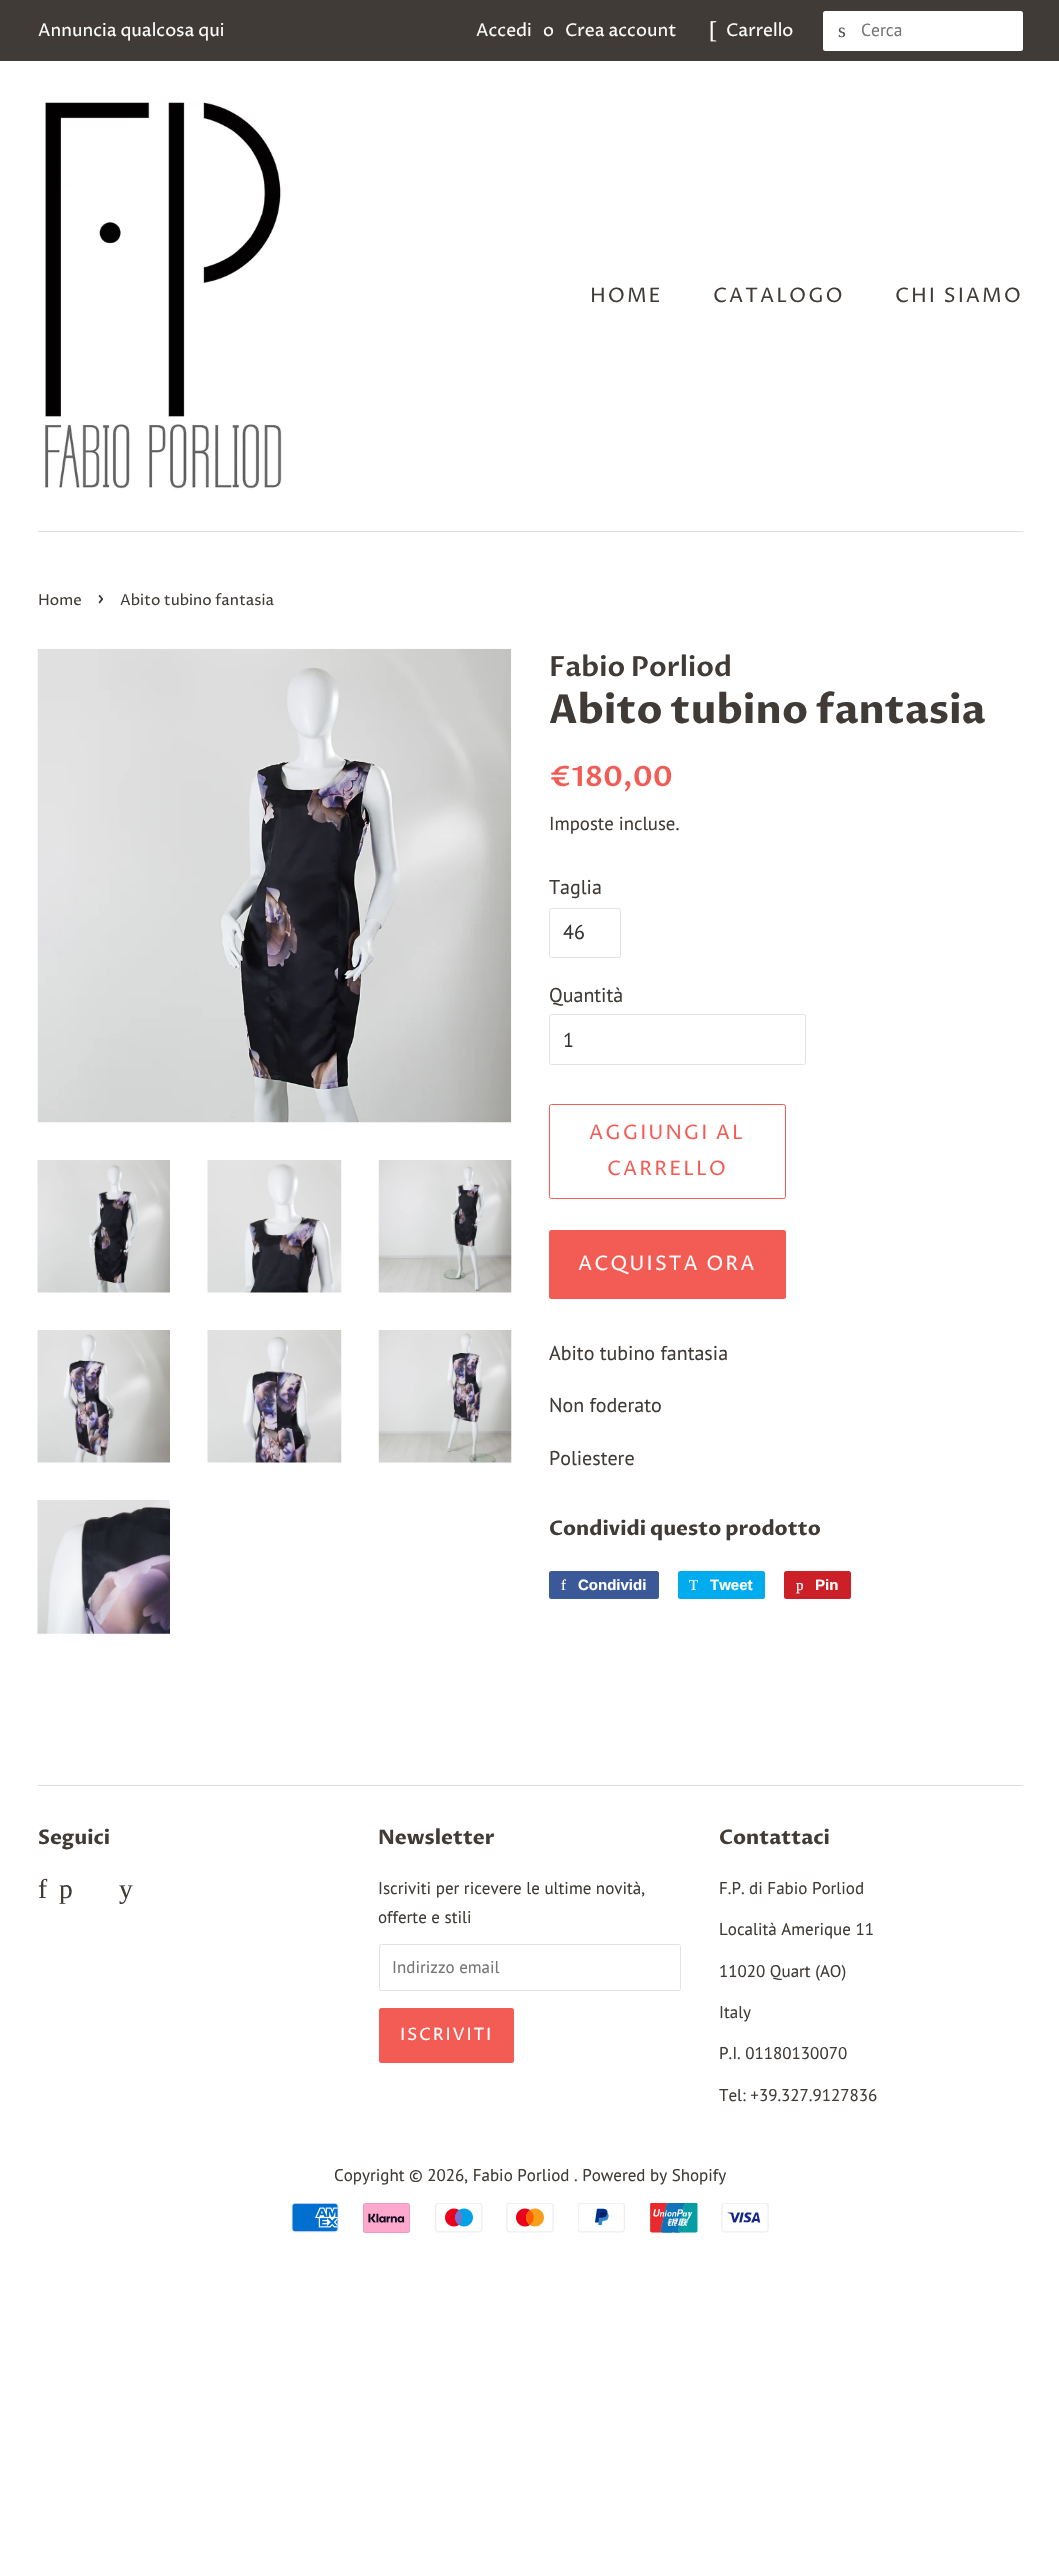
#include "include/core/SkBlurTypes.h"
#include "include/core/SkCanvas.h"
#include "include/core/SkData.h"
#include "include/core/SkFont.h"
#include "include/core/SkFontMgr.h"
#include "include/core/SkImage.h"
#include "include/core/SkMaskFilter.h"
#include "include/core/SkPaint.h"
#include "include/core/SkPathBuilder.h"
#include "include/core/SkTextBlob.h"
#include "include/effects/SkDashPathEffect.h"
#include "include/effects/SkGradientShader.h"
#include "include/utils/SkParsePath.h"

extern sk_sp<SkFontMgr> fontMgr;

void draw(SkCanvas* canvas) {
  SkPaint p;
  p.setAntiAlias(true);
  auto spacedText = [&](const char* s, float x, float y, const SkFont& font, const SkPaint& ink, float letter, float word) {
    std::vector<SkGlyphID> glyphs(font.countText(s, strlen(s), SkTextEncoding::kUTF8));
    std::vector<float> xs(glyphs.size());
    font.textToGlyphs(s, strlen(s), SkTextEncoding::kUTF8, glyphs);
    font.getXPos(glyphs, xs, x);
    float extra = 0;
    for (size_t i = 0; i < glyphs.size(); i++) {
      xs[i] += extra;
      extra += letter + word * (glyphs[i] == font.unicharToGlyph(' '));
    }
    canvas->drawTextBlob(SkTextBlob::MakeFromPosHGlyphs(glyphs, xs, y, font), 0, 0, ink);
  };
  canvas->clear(SK_ColorWHITE);
  p.setColor(SkColorSetRGB(64, 59, 55));
  canvas->drawRect(SkRect::MakeLTRB(0, 0, 1059, 61), p);
  p.setColor(SK_ColorWHITE);
  canvas->drawRoundRect(SkRect::MakeLTRB(823, 11, 1023, 51), 2.5f, 2.5f, p);
  p.setColor(SkColorSetRGB(221, 221, 221));
  canvas->drawRect(SkRect::MakeLTRB(38, 531, 1023, 532), p);
  canvas->drawImageRect(SkImages::DeferredFromEncodedData(SkData::MakeFromFileName("images/1.png")), SkRect::MakeLTRB(43, 102, 282, 490), SkSamplingOptions());
  canvas->drawImageRect(SkImages::DeferredFromEncodedData(SkData::MakeFromFileName("images/2.png")), SkRect::MakeLTRB(37, 648, 512, 1123), SkSamplingOptions());
  canvas->drawImageRect(SkImages::DeferredFromEncodedData(SkData::MakeFromFileName("images/3.png")), SkRect::MakeLTRB(37, 1160, 170, 1293), SkSamplingOptions());
  canvas->drawImageRect(SkImages::DeferredFromEncodedData(SkData::MakeFromFileName("images/4.png")), SkRect::MakeLTRB(207, 1160, 342, 1293), SkSamplingOptions());
  canvas->drawImageRect(SkImages::DeferredFromEncodedData(SkData::MakeFromFileName("images/5.png")), SkRect::MakeLTRB(378, 1160, 512, 1293), SkSamplingOptions());
  canvas->drawImageRect(SkImages::DeferredFromEncodedData(SkData::MakeFromFileName("images/6.png")), SkRect::MakeLTRB(37, 1330, 170, 1463), SkSamplingOptions());
  canvas->drawImageRect(SkImages::DeferredFromEncodedData(SkData::MakeFromFileName("images/7.png")), SkRect::MakeLTRB(207, 1330, 342, 1463), SkSamplingOptions());
  canvas->drawImageRect(SkImages::DeferredFromEncodedData(SkData::MakeFromFileName("images/8.png")), SkRect::MakeLTRB(378, 1330, 512, 1463), SkSamplingOptions());
  canvas->drawImageRect(SkImages::DeferredFromEncodedData(SkData::MakeFromFileName("images/9.png")), SkRect::MakeLTRB(37, 1500, 170, 1634), SkSamplingOptions());
  p.setStyle(SkPaint::kStroke_Style);
  p.setStrokeWidth(1);
  p.setColor(SkColorSetRGB(226, 226, 225));
  canvas->drawRoundRect(SkRect::MakeLTRB(549.5f, 908.5f, 620.5f, 957.5f), 2, 2, p);
  canvas->drawRoundRect(SkRect::MakeLTRB(549.5f, 1014.5f, 805.5f, 1064.5f), 2, 2, p);
  p.setColor(SkColorSetRGB(242, 92, 84));
  canvas->drawRoundRect(SkRect::MakeLTRB(549.5f, 1104.5f, 785.5f, 1198.5f), 2, 2, p);
  p.setStyle(SkPaint::kFill_Style);
  canvas->drawRoundRect(SkRect::MakeLTRB(549, 1230, 786, 1299), 2.5f, 2.5f, p);
  p.setColor(SkColorSetRGB(59, 89, 152));
  canvas->drawRoundRect(SkRect::MakeLTRB(549, 1571, 659, 1599), 2.5f, 2.5f, p);
  p.setColor(SkColorSetRGB(0, 172, 237));
  canvas->drawRoundRect(SkRect::MakeLTRB(678, 1571, 765, 1599), 2.5f, 2.5f, p);
  p.setColor(SkColorSetRGB(203, 32, 39));
  canvas->drawRoundRect(SkRect::MakeLTRB(784, 1571, 851, 1599), 2.5f, 2.5f, p);
  p.setColor(SkColorSetRGB(221, 221, 221));
  canvas->drawRect(SkRect::MakeLTRB(38, 1785, 1023, 1786), p);
  p.setStyle(SkPaint::kStroke_Style);
  p.setColor(SkColorSetRGB(226, 226, 225));
  canvas->drawRoundRect(SkRect::MakeLTRB(379.5f, 1944.5f, 680.5f, 1990.5f), 2, 2, p);
  p.setStyle(SkPaint::kFill_Style);
  p.setColor(SkColorSetRGB(242, 92, 84));
  canvas->drawRoundRect(SkRect::MakeLTRB(379, 2008, 514, 2063), 2.5f, 2.5f, p);
  canvas->drawImageRect(SkImages::DeferredFromEncodedData(SkData::MakeFromFileName("images/10.png")), SkRect::MakeLTRB(291, 2203, 339, 2233), SkSamplingOptions());
  canvas->drawImageRect(SkImages::DeferredFromEncodedData(SkData::MakeFromFileName("images/11.png")), SkRect::MakeLTRB(363, 2203, 410, 2233), SkSamplingOptions());
  canvas->drawImageRect(SkImages::DeferredFromEncodedData(SkData::MakeFromFileName("images/12.png")), SkRect::MakeLTRB(435, 2203, 483, 2233), SkSamplingOptions());
  canvas->drawImageRect(SkImages::DeferredFromEncodedData(SkData::MakeFromFileName("images/13.png")), SkRect::MakeLTRB(506, 2203, 554, 2233), SkSamplingOptions());
  canvas->drawImageRect(SkImages::DeferredFromEncodedData(SkData::MakeFromFileName("images/14.png")), SkRect::MakeLTRB(578, 2203, 625, 2233), SkSamplingOptions());
  canvas->drawImageRect(SkImages::DeferredFromEncodedData(SkData::MakeFromFileName("images/15.png")), SkRect::MakeLTRB(650, 2203, 698, 2233), SkSamplingOptions());
  canvas->drawImageRect(SkImages::DeferredFromEncodedData(SkData::MakeFromFileName("images/16.png")), SkRect::MakeLTRB(721, 2203, 769, 2233), SkSamplingOptions());
  SkFont font1(fontMgr->matchFamilyStyle("Proza Libre", SkFontStyle::Normal()), 17.5f);
  font1.setSubpixel(true);
  p.setColor(SK_ColorWHITE);
  canvas->drawString("Annuncia qualcosa qui", 38, 36, font1, p);
  canvas->drawString("Accedi", 476, 36, font1, p);
  canvas->drawString("o", 543, 36, font1, p);
  canvas->drawString("Crea account", 565, 36, font1, p);
  SkFont font2(fontMgr->matchFamilyStyle("Liberation Serif", SkFontStyle::Normal()), 24);
  font2.setSubpixel(true);
  canvas->drawString("[", 709, 38, font2, p);
  canvas->drawString("Carrello", 726, 36, font1, p);
  SkFont font3(fontMgr->matchFamilyStyle("Liberation Serif", SkFontStyle::Normal()), 20);
  font3.setSubpixel(true);
  p.setColor(SkColorSetRGB(85, 85, 85));
  spacedText("s", 838, 37, font3, p, 2, 0);
  SkFont font4(fontMgr->matchFamilyStyle("PT Sans", SkFontStyle::Normal()), 17.5f);
  font4.setSubpixel(true);
  p.setColor(SkColorSetRGB(117, 117, 117));
  canvas->drawString("Cerca", 861, 36, font4, p);
  SkFont font5(fontMgr->matchFamilyStyle("Proza Libre", SkFontStyle::Normal()), 20);
  font5.setSubpixel(true);
  p.setColor(SkColorSetRGB(64, 59, 55));
  spacedText("HOME", 590, 302, font5, p, 2, 0);
  spacedText("CATALOGO", 713, 302, font5, p, 2, 0);
  spacedText("CHI SIAMO", 895, 302, font5, p, 2, 0);
  SkFont font6(fontMgr->matchFamilyStyle("Proza Libre", SkFontStyle::Normal()), 15);
  font6.setSubpixel(true);
  canvas->drawString("Home", 38, 605, font6, p);
  SkFont font7(fontMgr->matchFamilyStyle("Proza Libre", SkFontStyle::Normal()), 21);
  font7.setSubpixel(true);
  canvas->drawString("›", 97, 605, font7, p);
  canvas->drawString("Abito tubino fantasia", 120, 605, font6, p);
  SkFont font8(fontMgr->matchFamilyStyle("Proza Libre", SkFontStyle(600, SkFontStyle::kNormal_Width, SkFontStyle::kUpright_Slant)), 27.5f);
  font8.setSubpixel(true);
  canvas->drawString("Fabio Porliod", 549, 676, font8, p);
  SkFont font9(fontMgr->matchFamilyStyle("Proza Libre", SkFontStyle::Bold()), 40);
  font9.setSubpixel(true);
  canvas->drawString("Abito tubino fantasia", 549, 723, font9, p);
  SkFont font10(fontMgr->matchFamilyStyle("Proza Libre", SkFontStyle(600, SkFontStyle::kNormal_Width, SkFontStyle::kUpright_Slant)), 28);
  font10.setSubpixel(true);
  p.setColor(SkColorSetRGB(242, 92, 84));
  canvas->drawString("€180,00", 549, 786, font10, p);
  SkFont font11(fontMgr->matchFamilyStyle("PT Sans", SkFontStyle::Normal()), 18.75f);
  font11.setSubpixel(true);
  p.setColor(SkColorSetRGB(64, 59, 55));
  canvas->drawString("Imposte incluse.", 549, 830, font11, p);
  SkFont font12(fontMgr->matchFamilyStyle("PT Sans", SkFontStyle::Normal()), 20);
  font12.setSubpixel(true);
  canvas->drawString("Taglia", 549, 894, font12, p);
  p.setColor(SkColorSetRGB(51, 51, 51));
  canvas->drawString("46", 563, 939, font12, p);
  p.setColor(SkColorSetRGB(64, 59, 55));
  canvas->drawString("Quantità", 549, 1002, font12, p);
  p.setColor(SkColorSetRGB(51, 51, 51));
  canvas->drawString("1", 563, 1047, font12, p);
  p.setColor(SkColorSetRGB(242, 92, 84));
  spacedText("AGGIUNGI AL", 589, 1139, font5, p, 2, 0);
  spacedText("CARRELLO", 607, 1175, font5, p, 2, 0);
  p.setColor(SK_ColorWHITE);
  spacedText("ACQUISTA ORA", 578, 1270, font5, p, 2, 0);
  p.setColor(SkColorSetRGB(64, 59, 55));
  canvas->drawString("Abito tubino fantasia", 549, 1360, font12, p);
  canvas->drawString("Non foderato", 549, 1412, font12, p);
  canvas->drawString("Poliestere", 549, 1465, font12, p);
  SkFont font13(fontMgr->matchFamilyStyle("Proza Libre", SkFontStyle::Bold()), 20);
  font13.setSubpixel(true);
  canvas->drawString("Condividi questo prodotto", 549, 1535, font13, p);
  SkFont font14(fontMgr->matchFamilyStyle("Liberation Serif", SkFontStyle::Normal()), 15);
  font14.setSubpixel(true);
  p.setColor(SK_ColorWHITE);
  canvas->drawString("f", 561, 1590, font14, p);
  SkFont font15(fontMgr->matchFamilyStyle("Liberation Sans", SkFontStyle::Bold()), 15);
  font15.setSubpixel(true);
  canvas->drawString("Condividi", 578, 1590, font15, p);
  canvas->drawString("T", 689, 1590, font14, p);
  canvas->drawString("Tweet", 710, 1590, font15, p);
  canvas->drawString("p", 796, 1590, font14, p);
  canvas->drawString("Pin", 815, 1590, font15, p);
  p.setColor(SkColorSetRGB(64, 59, 55));
  canvas->drawString("Seguici", 38, 1844, font13, p);
  SkFont font16(fontMgr->matchFamilyStyle("Liberation Serif", SkFontStyle::Normal()), 27.5f);
  font16.setSubpixel(true);
  canvas->drawString("f", 38, 1898, font16, p);
  canvas->drawString("p", 59, 1898, font16, p);
  canvas->drawString("y", 119, 1898, font16, p);
  canvas->drawString("Newsletter", 378, 1844, font13, p);
  SkFont font17(fontMgr->matchFamilyStyle("PT Sans", SkFontStyle::Normal()), 17);
  font17.setSubpixel(true);
  canvas->drawString("Iscriviti per ricevere le ultime novità,", 378, 1894, font17, p);
  canvas->drawString("offerte e stili", 378, 1923, font17, p);
  p.setColor(SkColorSetRGB(117, 117, 117));
  canvas->drawString("Indirizzo email", 392, 1973, font17, p);
  SkFont font18(fontMgr->matchFamilyStyle("Proza Libre", SkFontStyle::Normal()), 17);
  font18.setSubpixel(true);
  p.setColor(SK_ColorWHITE);
  spacedText("ISCRIVITI", 400, 2040, font18, p, 1.75f, 0);
  p.setColor(SkColorSetRGB(64, 59, 55));
  canvas->drawString("Contattaci", 719, 1844, font13, p);
  canvas->drawString("F.P. di Fabio Porliod", 719, 1894, font17, p);
  canvas->drawString("Località Amerique 11", 719, 1935, font17, p);
  canvas->drawString("11020 Quart (AO)", 719, 1977, font17, p);
  canvas->drawString("Italy", 719, 2018, font17, p);
  canvas->drawString("P.I. 01180130070", 719, 2059, font17, p);
  canvas->drawString("Tel: +39.327.9127836", 719, 2101, font17, p);
  canvas->drawString("Copyright © 2026, Fabio Porliod . Powered by Shopify", 334, 2181, font17, p);
}
